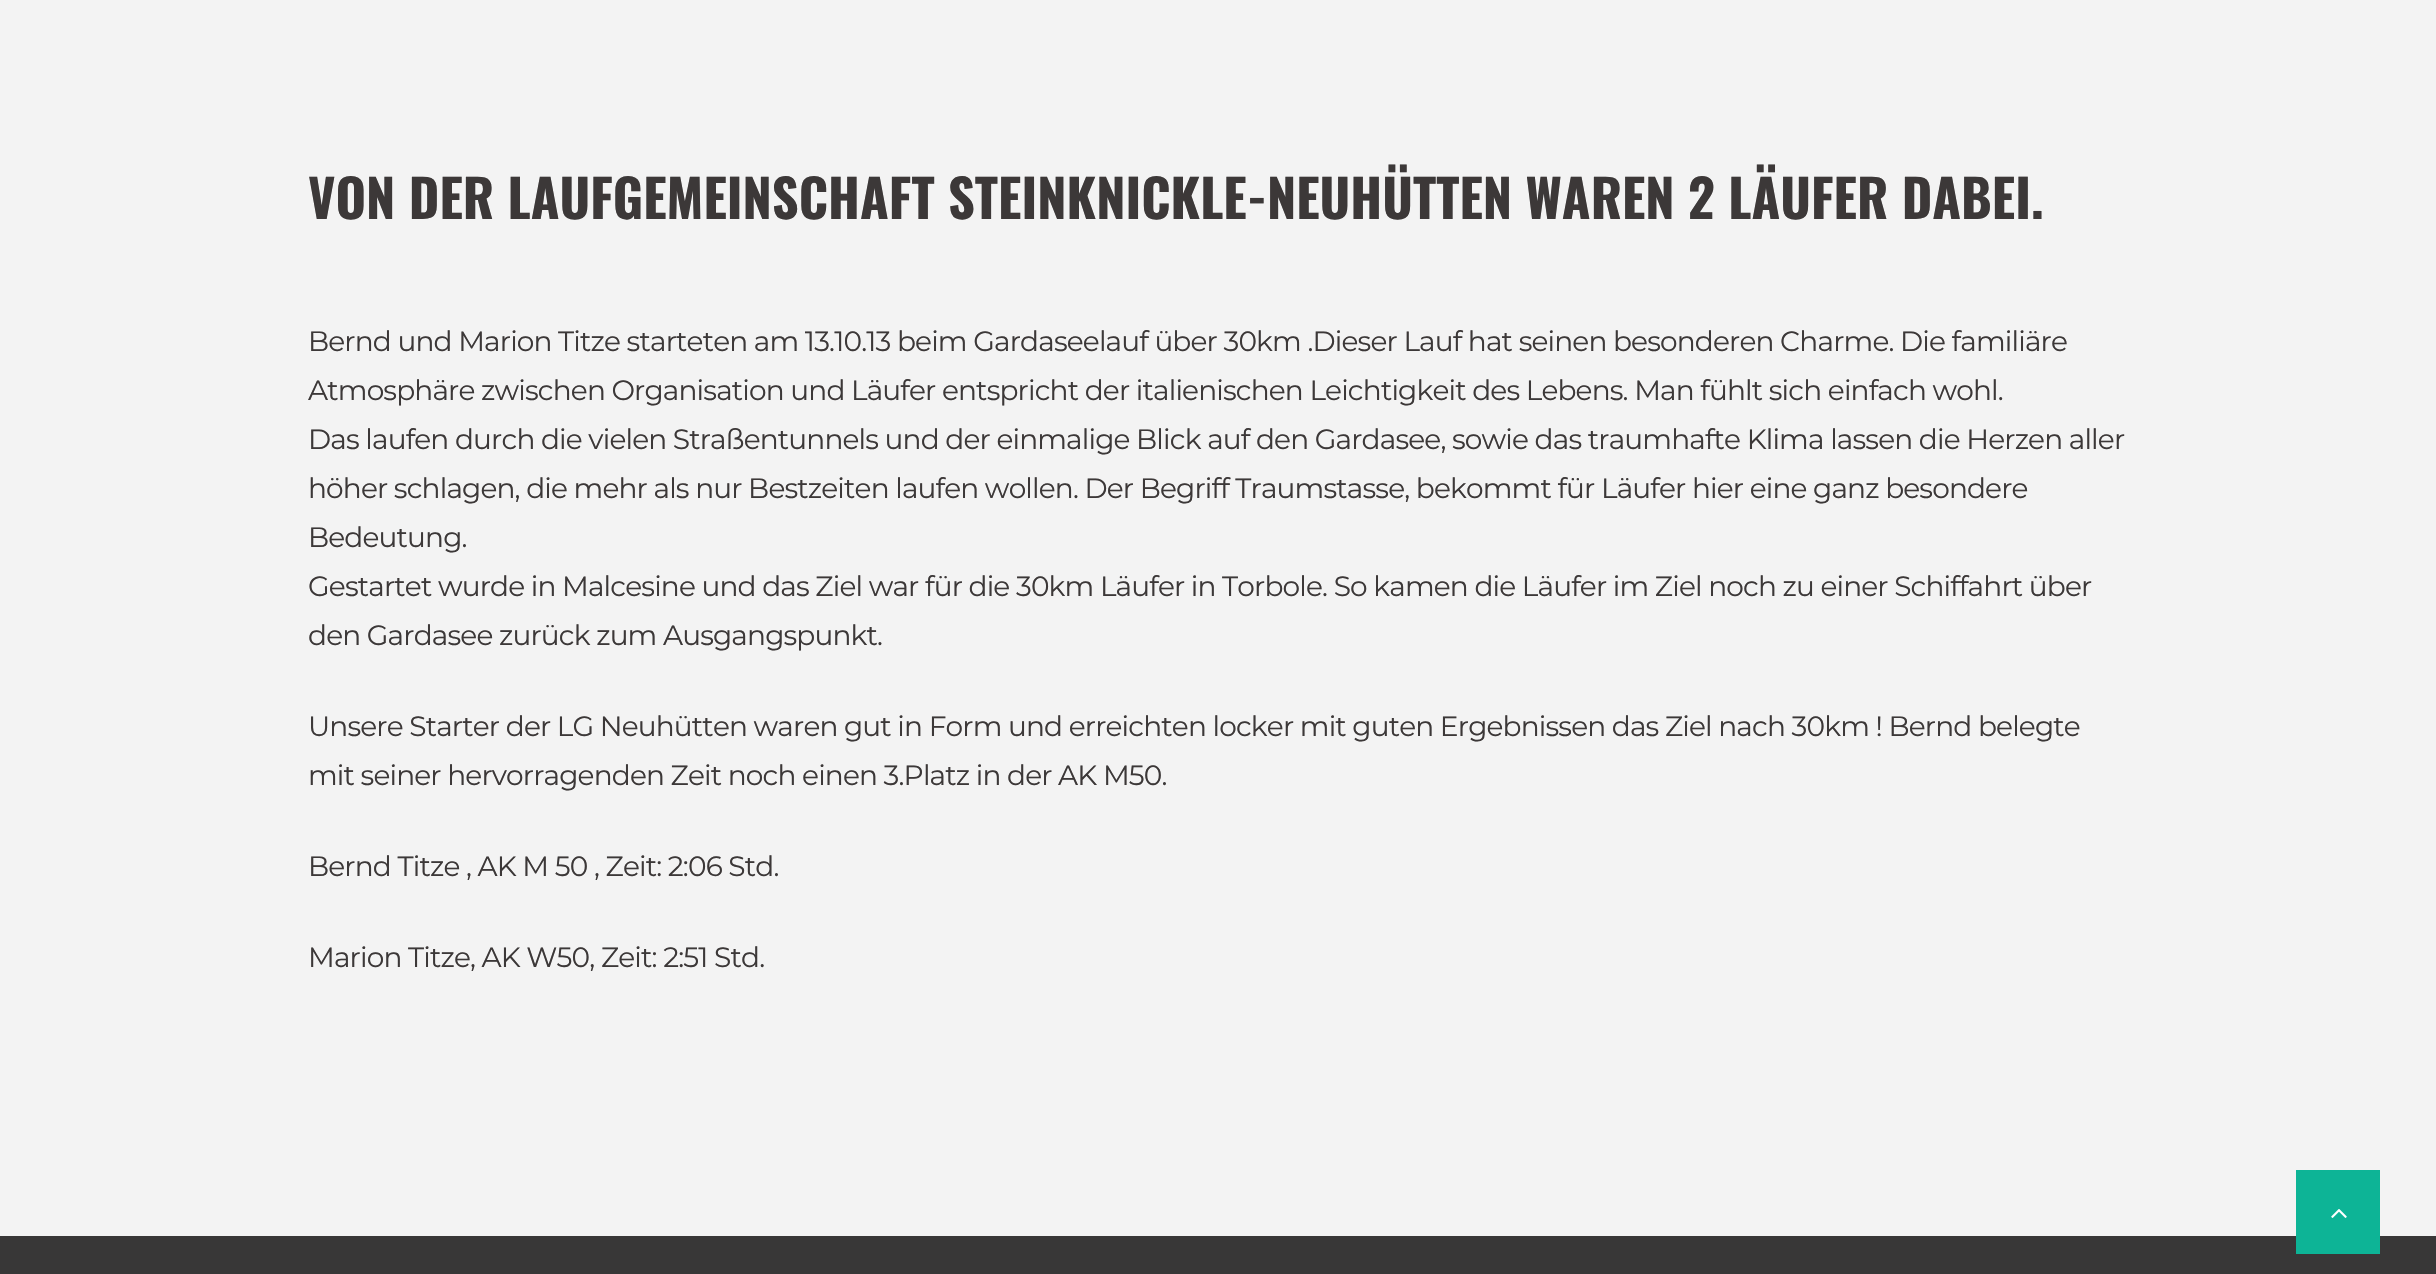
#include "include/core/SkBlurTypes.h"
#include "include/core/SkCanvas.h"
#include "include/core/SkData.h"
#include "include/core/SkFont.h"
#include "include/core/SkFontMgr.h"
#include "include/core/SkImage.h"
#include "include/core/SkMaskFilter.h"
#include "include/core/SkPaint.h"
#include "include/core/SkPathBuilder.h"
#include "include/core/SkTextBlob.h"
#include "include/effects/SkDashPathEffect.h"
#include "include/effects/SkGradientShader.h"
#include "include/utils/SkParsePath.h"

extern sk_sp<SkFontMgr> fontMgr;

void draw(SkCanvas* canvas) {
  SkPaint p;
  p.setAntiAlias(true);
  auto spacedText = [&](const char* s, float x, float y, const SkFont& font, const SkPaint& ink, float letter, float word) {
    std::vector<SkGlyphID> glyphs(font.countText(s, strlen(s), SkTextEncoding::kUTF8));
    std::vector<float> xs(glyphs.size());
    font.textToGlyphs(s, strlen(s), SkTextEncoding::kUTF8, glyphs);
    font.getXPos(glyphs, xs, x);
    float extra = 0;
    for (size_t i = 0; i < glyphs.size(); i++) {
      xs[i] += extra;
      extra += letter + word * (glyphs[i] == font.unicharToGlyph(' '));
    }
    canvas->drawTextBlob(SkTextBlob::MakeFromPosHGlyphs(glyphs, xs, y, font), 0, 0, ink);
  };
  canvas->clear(SkColorSetRGB(243, 243, 243));
  p.setColor(SkColorSetRGB(56, 55, 55));
  canvas->drawRect(SkRect::MakeLTRB(0, 1236, 2436, 1274), p);
  p.setColor(SkColorSetRGB(13, 180, 150));
  canvas->drawRect(SkRect::MakeLTRB(2296, 1170, 2380, 1254), p);
  canvas->drawImageRect(SkImages::DeferredFromEncodedData(SkData::MakeFromFileName("images/1.png")), SkRect::MakeLTRB(2331, 1209, 2347, 1218), SkSamplingOptions());
  SkFont font1(fontMgr->matchFamilyStyle("Oswald", SkFontStyle::Bold()), 52.25f);
  font1.setSubpixel(true);
  p.setColor(SkColorSetRGB(60, 56, 56));
  canvas->drawString("VON DER LAUFGEMEINSCHAFT STEINKNICKLE-NEUHÜTTEN WAREN 2 LÄUFER DABEI.", 308, 219, font1, p);
  SkFont font2(fontMgr->matchFamilyStyle("Montserrat", SkFontStyle::Normal()), 28);
  font2.setSubpixel(true);
  spacedText("Bernd und Marion Titze starteten am 13.10.13 beim Gardaseelauf über 30km .Dieser Lauf hat seinen besonderen Charme. Die familiäre", 308, 351, font2, p, -0.84f, 0);
  spacedText("Atmosphäre zwischen Organisation und Läufer entspricht der italienischen Leichtigkeit des Lebens. Man fühlt sich einfach wohl.", 308, 400, font2, p, -0.84f, 0);
  spacedText("Das laufen durch die vielen Straßentunnels und der einmalige Blick auf den Gardasee, sowie das traumhafte Klima lassen die Herzen aller", 308, 449, font2, p, -0.84f, 0);
  spacedText("höher schlagen, die mehr als nur Bestzeiten laufen wollen. Der Begriff Traumstasse, bekommt für Läufer hier eine ganz besondere", 308, 498, font2, p, -0.84f, 0);
  spacedText("Bedeutung.", 308, 547, font2, p, -0.84f, 0);
  spacedText("Gestartet wurde in Malcesine und das Ziel war für die 30km Läufer in Torbole. So kamen die Läufer im Ziel noch zu einer Schiffahrt über", 308, 596, font2, p, -0.84f, 0);
  spacedText("den Gardasee zurück zum Ausgangspunkt.", 308, 645, font2, p, -0.84f, 0);
  spacedText("Unsere Starter der LG Neuhütten waren gut in Form und erreichten locker mit guten Ergebnissen das Ziel nach 30km ! Bernd belegte", 308, 736, font2, p, -0.84f, 0);
  spacedText("mit seiner hervorragenden Zeit noch einen 3.Platz in der AK M50.", 308, 785, font2, p, -0.84f, 0);
  spacedText("Bernd Titze , AK M 50 , Zeit: 2:06 Std.", 308, 876, font2, p, -0.84f, 0);
  spacedText("Marion Titze, AK W50, Zeit: 2:51 Std.", 308, 967, font2, p, -0.84f, 0);
}
